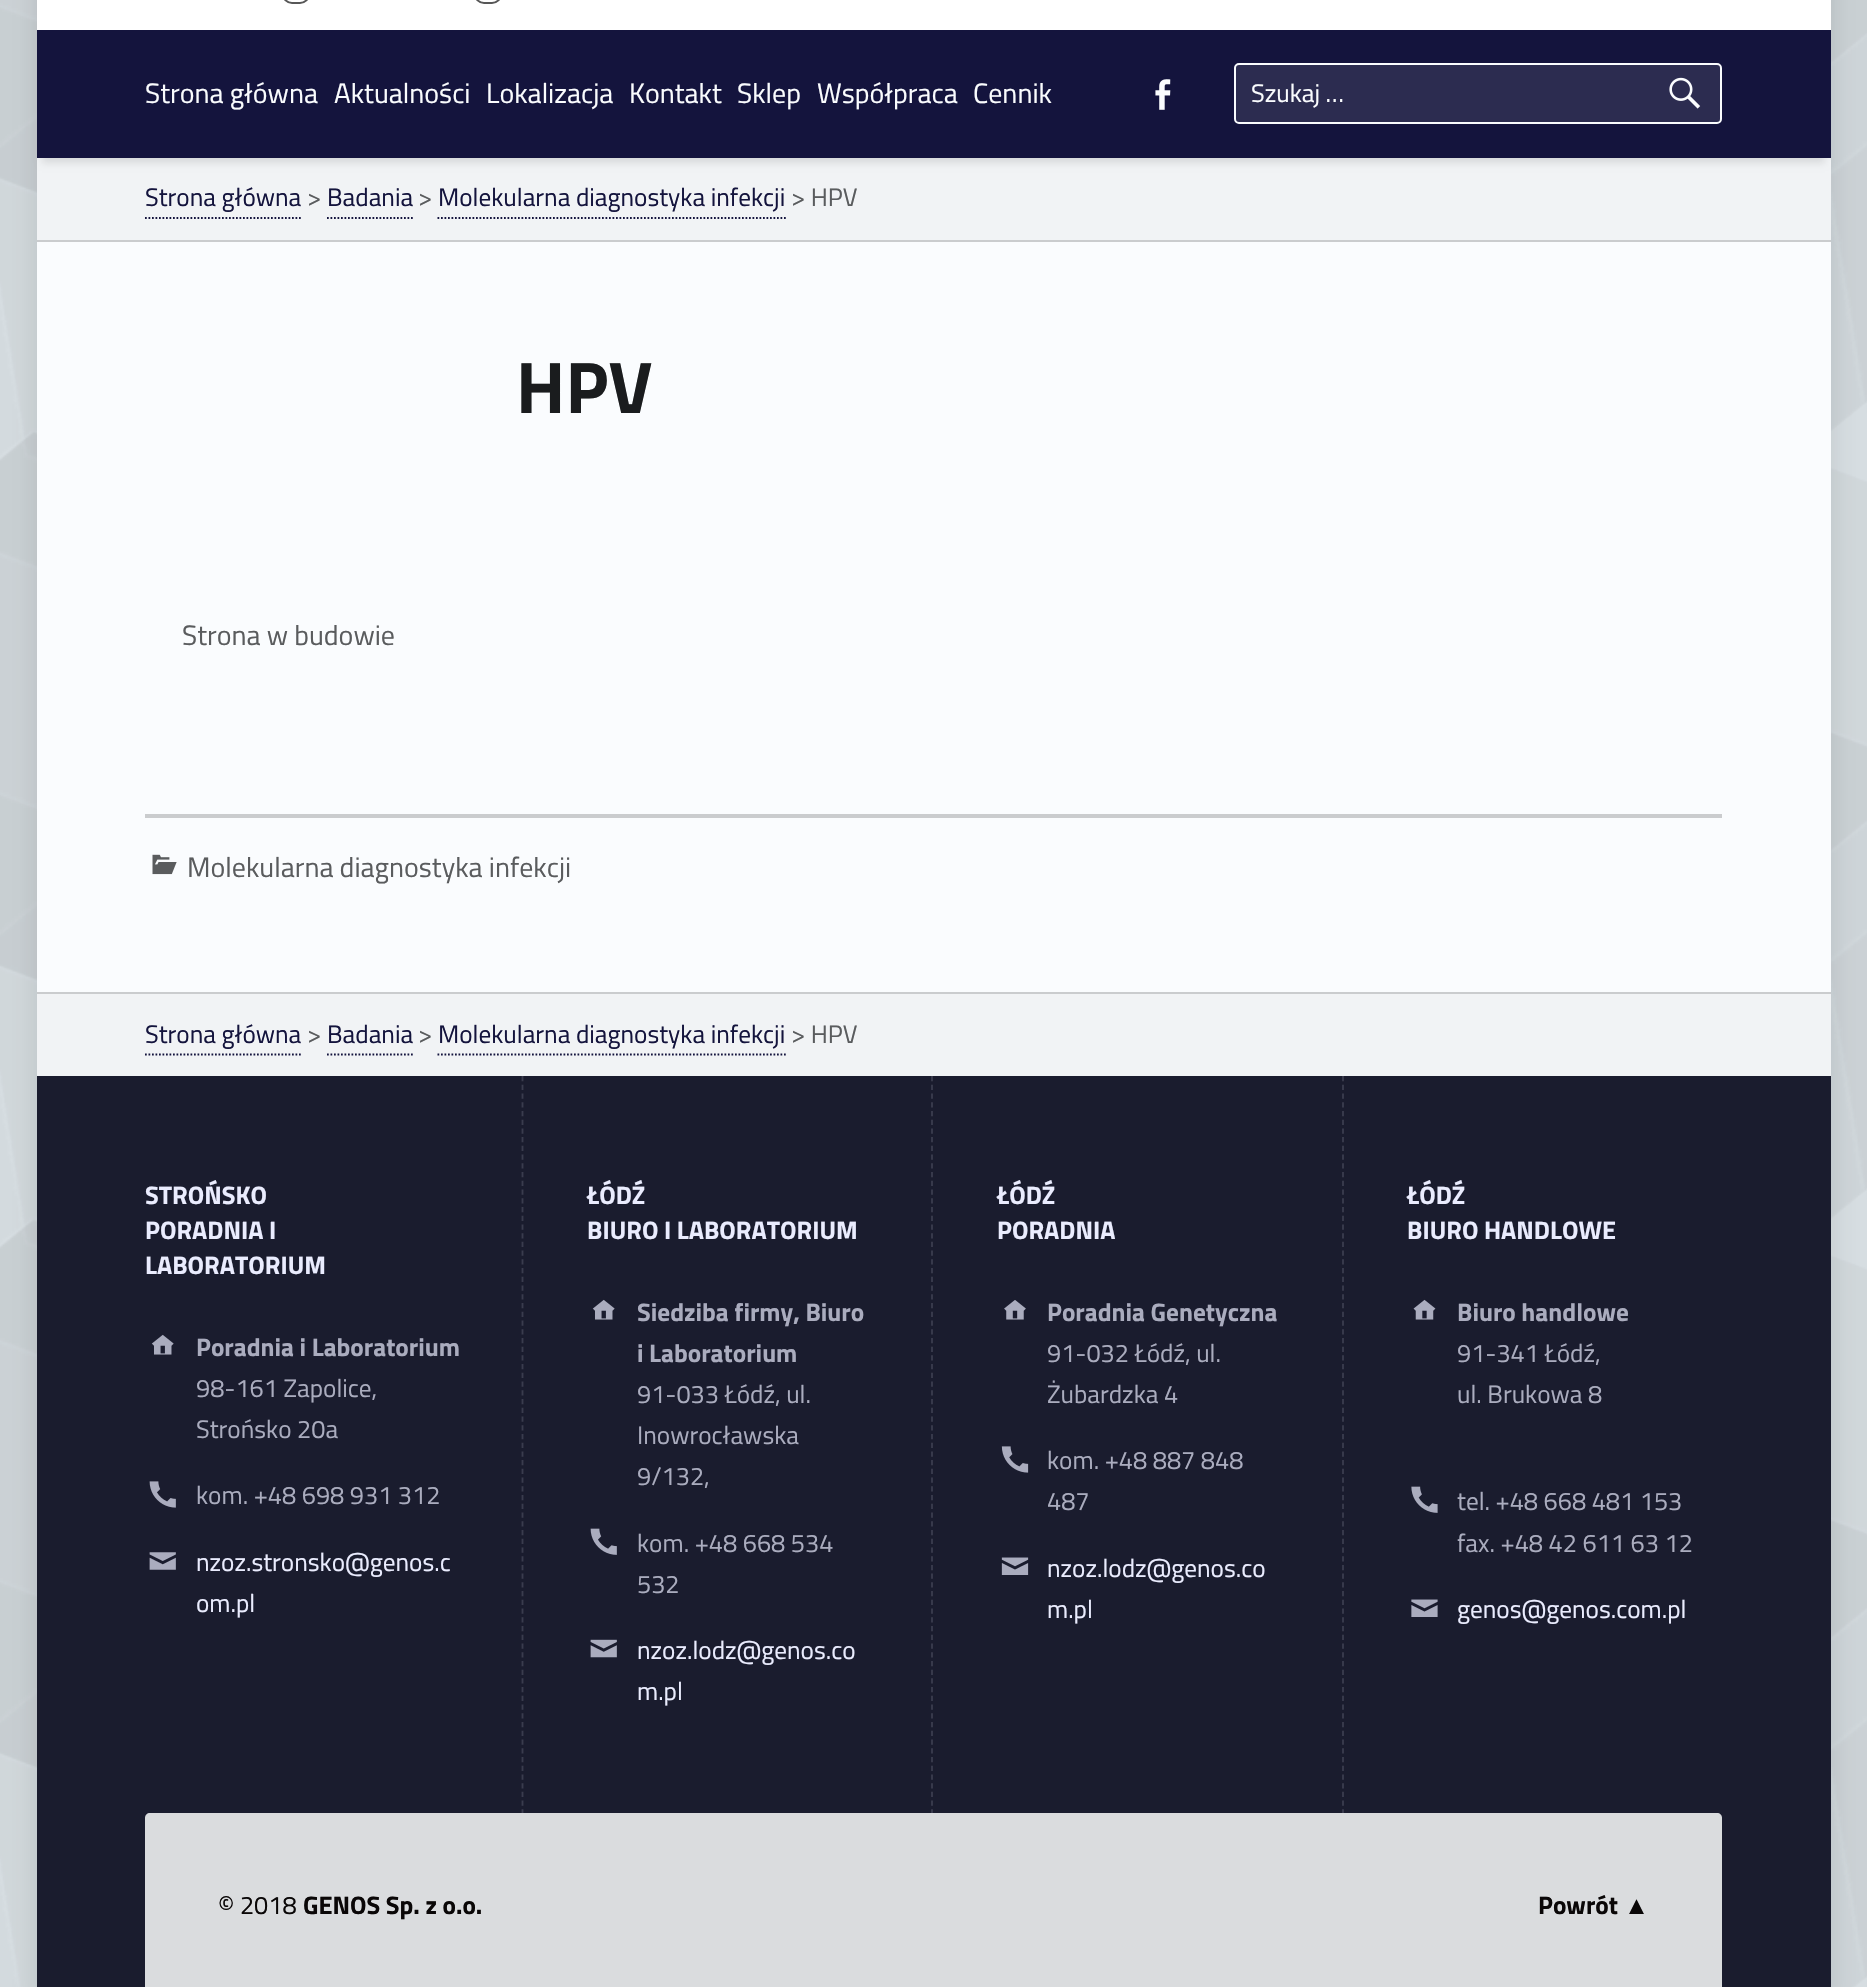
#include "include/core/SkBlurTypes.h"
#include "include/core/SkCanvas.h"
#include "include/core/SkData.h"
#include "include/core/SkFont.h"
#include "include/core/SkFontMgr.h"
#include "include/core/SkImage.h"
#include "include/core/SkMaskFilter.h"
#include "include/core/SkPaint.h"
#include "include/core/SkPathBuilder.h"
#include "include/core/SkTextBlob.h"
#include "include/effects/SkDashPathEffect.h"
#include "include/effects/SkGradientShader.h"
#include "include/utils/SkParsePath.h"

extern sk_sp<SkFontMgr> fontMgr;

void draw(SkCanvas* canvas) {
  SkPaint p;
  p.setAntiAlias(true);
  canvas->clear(SkColorSetRGB(215, 222, 226));
  canvas->drawImageRect(SkImages::DeferredFromEncodedData(SkData::MakeFromFileName("images/1.png")), SkRect::MakeLTRB(0, 0, 1867, 1987), SkSamplingOptions());
  p.setColor(SkColorSetARGB(26, 0, 0, 0));
  p.setMaskFilter(SkMaskFilter::MakeBlur(kNormal_SkBlurStyle, 14));
  canvas->drawRect(SkRect::MakeLTRB(37, -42, 1831, 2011), p);
  p.setMaskFilter(nullptr);
  p.setColor(SkColorSetRGB(250, 252, 254));
  canvas->drawRect(SkRect::MakeLTRB(37, 242, 1831, 992), p);
  p.setColor(SkColorSetRGB(241, 243, 245));
  canvas->drawRect(SkRect::MakeLTRB(37, 158, 1831, 240), p);
  p.setColor(SkColorSetARGB(26, 0, 0, 0));
  p.setMaskFilter(SkMaskFilter::MakeBlur(kNormal_SkBlurStyle, 3.5f));
  canvas->drawRect(SkRect::MakeLTRB(42, -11, 1825, 163), p);
  p.setMaskFilter(nullptr);
  p.setColor(SK_ColorWHITE);
  canvas->drawRect(SkRect::MakeLTRB(37, 0, 1831, 30), p);
  p.setStyle(SkPaint::kStroke_Style);
  p.setStrokeWidth(2);
  p.setColor(SkColorSetRGB(87, 87, 87));
  canvas->drawRoundRect(SkRect::MakeLTRB(283, -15, 309, 3), 13, 13, p);
  canvas->drawRoundRect(SkRect::MakeLTRB(475, -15, 501, 3), 13, 13, p);
  p.setStyle(SkPaint::kFill_Style);
  p.setColor(SkColorSetRGB(20, 20, 61));
  canvas->drawRect(SkRect::MakeLTRB(37, 30, 1831, 158), p);
  canvas->drawImageRect(SkImages::DeferredFromEncodedData(SkData::MakeFromFileName("images/2.png")), SkRect::MakeLTRB(1155, 79, 1171, 110), SkSamplingOptions());
  p.setColor(SkColorSetRGB(44, 44, 80));
  canvas->drawRoundRect(SkRect::MakeLTRB(1235, 64, 1721, 123), 4, 4, p);
  p.setStyle(SkPaint::kStroke_Style);
  p.setColor(SkColorSetRGB(250, 252, 254));
  canvas->drawRoundRect(SkRect::MakeLTRB(1235, 64, 1721, 123), 4, 4, p);
  canvas->drawImageRect(SkImages::DeferredFromEncodedData(SkData::MakeFromFileName("images/3.png")), SkRect::MakeLTRB(1669, 77, 1701, 109), SkSamplingOptions());
  p.setStyle(SkPaint::kFill_Style);
  p.setColor(SkColorSetRGB(202, 204, 206));
  canvas->drawRect(SkRect::MakeLTRB(37, 240, 1831, 242), p);
  p.setStyle(SkPaint::kStroke_Style);
  p.setStrokeWidth(1.8f);
  p.setColor(SkColorSetRGB(20, 20, 61));
  p.setPathEffect(SkDashPathEffect::Make({{1.75f, 1.75f}}, 0));
  canvas->drawPath(SkPathBuilder().moveTo(145, 218).lineTo(301, 218).detach(), p);
  p.setPathEffect(nullptr);
  p.setPathEffect(SkDashPathEffect::Make({{1.75f, 1.75f}}, 0));
  canvas->drawPath(SkPathBuilder().moveTo(327, 218).lineTo(413, 218).detach(), p);
  p.setPathEffect(nullptr);
  p.setPathEffect(SkDashPathEffect::Make({{1.75f, 1.75f}}, 0));
  canvas->drawPath(SkPathBuilder().moveTo(437.5f, 218).lineTo(786, 218).detach(), p);
  p.setPathEffect(nullptr);
  p.setStyle(SkPaint::kFill_Style);
  p.setColor(SkColorSetRGB(202, 204, 206));
  canvas->drawRect(SkRect::MakeLTRB(145, 814, 1722, 818), p);
  canvas->drawImageRect(SkImages::DeferredFromEncodedData(SkData::MakeFromFileName("images/4.png")), SkRect::MakeLTRB(152, 854, 177, 875), SkSamplingOptions());
  p.setColor(SkColorSetRGB(241, 243, 245));
  canvas->drawRect(SkRect::MakeLTRB(37, 994, 1831, 1076), p);
  p.setColor(SkColorSetRGB(202, 204, 206));
  canvas->drawRect(SkRect::MakeLTRB(37, 992, 1831, 994), p);
  p.setStyle(SkPaint::kStroke_Style);
  p.setColor(SkColorSetRGB(20, 20, 61));
  p.setPathEffect(SkDashPathEffect::Make({{1.75f, 1.75f}}, 0));
  canvas->drawPath(SkPathBuilder().moveTo(145, 1054.5f).lineTo(301, 1054.5f).detach(), p);
  p.setPathEffect(nullptr);
  p.setPathEffect(SkDashPathEffect::Make({{1.75f, 1.75f}}, 0));
  canvas->drawPath(SkPathBuilder().moveTo(327, 1054.5f).lineTo(413, 1054.5f).detach(), p);
  p.setPathEffect(nullptr);
  p.setPathEffect(SkDashPathEffect::Make({{1.75f, 1.75f}}, 0));
  canvas->drawPath(SkPathBuilder().moveTo(437.5f, 1054.5f).lineTo(786, 1054.5f).detach(), p);
  p.setPathEffect(nullptr);
  p.setStyle(SkPaint::kFill_Style);
  p.setColor(SkColorSetRGB(26, 28, 46));
  canvas->drawRect(SkRect::MakeLTRB(37, 1076, 1831, 1813), p);
  p.setStyle(SkPaint::kStroke_Style);
  p.setColor(SkColorSetRGB(58, 60, 78));
  p.setPathEffect(SkDashPathEffect::Make({{5.25f, 3.48f}}, 0));
  canvas->drawPath(SkPathBuilder().moveTo(522.5f, 1076).lineTo(522.5f, 1815).detach(), p);
  p.setPathEffect(nullptr);
  canvas->drawImageRect(SkImages::DeferredFromEncodedData(SkData::MakeFromFileName("images/5.png")), SkRect::MakeLTRB(151, 1334, 174, 1355), SkSamplingOptions());
  canvas->drawImageRect(SkImages::DeferredFromEncodedData(SkData::MakeFromFileName("images/6.png")), SkRect::MakeLTRB(149, 1481, 176, 1508), SkSamplingOptions());
  canvas->drawImageRect(SkImages::DeferredFromEncodedData(SkData::MakeFromFileName("images/7.png")), SkRect::MakeLTRB(149, 1552, 176, 1570), SkSamplingOptions());
  p.setPathEffect(SkDashPathEffect::Make({{5.25f, 3.48f}}, 0));
  canvas->drawPath(SkPathBuilder().moveTo(932, 1076).lineTo(932, 1815).detach(), p);
  p.setPathEffect(nullptr);
  canvas->drawImageRect(SkImages::DeferredFromEncodedData(SkData::MakeFromFileName("images/5.png")), SkRect::MakeLTRB(592, 1299, 615, 1320), SkSamplingOptions());
  canvas->drawImageRect(SkImages::DeferredFromEncodedData(SkData::MakeFromFileName("images/8.png")), SkRect::MakeLTRB(590, 1528, 617, 1555), SkSamplingOptions());
  canvas->drawImageRect(SkImages::DeferredFromEncodedData(SkData::MakeFromFileName("images/9.png")), SkRect::MakeLTRB(590, 1639, 617, 1658), SkSamplingOptions());
  p.setPathEffect(SkDashPathEffect::Make({{5.25f, 3.48f}}, 0));
  canvas->drawPath(SkPathBuilder().moveTo(1343, 1076).lineTo(1343, 1815).detach(), p);
  p.setPathEffect(nullptr);
  canvas->drawImageRect(SkImages::DeferredFromEncodedData(SkData::MakeFromFileName("images/10.png")), SkRect::MakeLTRB(1004, 1300, 1026, 1320), SkSamplingOptions());
  canvas->drawImageRect(SkImages::DeferredFromEncodedData(SkData::MakeFromFileName("images/11.png")), SkRect::MakeLTRB(1001, 1446, 1029, 1473), SkSamplingOptions());
  canvas->drawImageRect(SkImages::DeferredFromEncodedData(SkData::MakeFromFileName("images/12.png")), SkRect::MakeLTRB(1001, 1557, 1029, 1575), SkSamplingOptions());
  canvas->drawImageRect(SkImages::DeferredFromEncodedData(SkData::MakeFromFileName("images/13.png")), SkRect::MakeLTRB(1413, 1299, 1436, 1320), SkSamplingOptions());
  canvas->drawImageRect(SkImages::DeferredFromEncodedData(SkData::MakeFromFileName("images/14.png")), SkRect::MakeLTRB(1411, 1486, 1438, 1513), SkSamplingOptions());
  canvas->drawImageRect(SkImages::DeferredFromEncodedData(SkData::MakeFromFileName("images/15.png")), SkRect::MakeLTRB(1411, 1599, 1438, 1617), SkSamplingOptions());
  p.setStyle(SkPaint::kFill_Style);
  p.setColor(SkColorSetRGB(26, 28, 46));
  canvas->drawRect(SkRect::MakeLTRB(37, 1813, 1831, 1987), p);
  p.setColor(SkColorSetRGB(218, 220, 222));
  canvas->drawPath(SkPathBuilder().moveTo(150, 1813).lineTo(1717, 1813).cubicTo(1720, 1813, 1722, 1815, 1722, 1818).lineTo(1722, 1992).lineTo(145, 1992).lineTo(145, 1818).cubicTo(145, 1815, 147, 1813, 150, 1813).close().detach(), p);
  SkFont font1(fontMgr->matchFamilyStyle("Titillium Web", SkFontStyle::Normal()), 28);
  font1.setSubpixel(true);
  p.setColor(SkColorSetRGB(250, 252, 254));
  canvas->drawString("Strona główna", 145, 103, font1, p);
  canvas->drawString("Aktualności", 334, 103, font1, p);
  canvas->drawString("Lokalizacja", 486, 103, font1, p);
  canvas->drawString("Kontakt", 629, 103, font1, p);
  canvas->drawString("Sklep", 737, 103, font1, p);
  canvas->drawString("Współpraca", 817, 103, font1, p);
  canvas->drawString("Cennik", 973, 103, font1, p);
  SkFont font2(fontMgr->matchFamilyStyle("Titillium Web", SkFontStyle::Normal()), 25.3f);
  font2.setSubpixel(true);
  canvas->drawString("Szukaj …", 1251, 102, font2, p);
  p.setColor(SkColorSetRGB(20, 20, 61));
  canvas->drawString("Strona główna", 145, 206, font2, p);
  p.setColor(SkColorSetRGB(90, 92, 94));
  canvas->drawString(">", 307, 206, font2, p);
  p.setColor(SkColorSetRGB(20, 20, 61));
  canvas->drawString("Badania", 327, 206, font2, p);
  p.setColor(SkColorSetRGB(90, 92, 94));
  canvas->drawString(">", 418, 206, font2, p);
  p.setColor(SkColorSetRGB(20, 20, 61));
  canvas->drawString("Molekularna diagnostyka infekcji", 438, 206, font2, p);
  p.setColor(SkColorSetRGB(90, 92, 94));
  canvas->drawString("> HPV", 791, 206, font2, p);
  SkFont font3(fontMgr->matchFamilyStyle("Titillium Web", SkFontStyle::Bold()), 73);
  font3.setSubpixel(true);
  p.setColor(SkColorSetRGB(26, 28, 30));
  canvas->drawString("HPV", 516, 413, font3, p);
  p.setColor(SkColorSetRGB(90, 92, 94));
  canvas->drawString("Strona w budowie", 182, 645, font1, p);
  canvas->drawString("Molekularna diagnostyka infekcji", 187, 877, font1, p);
  p.setColor(SkColorSetRGB(20, 20, 61));
  canvas->drawString("Strona główna", 145, 1043, font2, p);
  p.setColor(SkColorSetRGB(90, 92, 94));
  canvas->drawString(">", 307, 1043, font2, p);
  p.setColor(SkColorSetRGB(20, 20, 61));
  canvas->drawString("Badania", 327, 1043, font2, p);
  p.setColor(SkColorSetRGB(90, 92, 94));
  canvas->drawString(">", 418, 1043, font2, p);
  p.setColor(SkColorSetRGB(20, 20, 61));
  canvas->drawString("Molekularna diagnostyka infekcji", 438, 1043, font2, p);
  p.setColor(SkColorSetRGB(90, 92, 94));
  canvas->drawString("> HPV", 791, 1043, font2, p);
  SkFont font4(fontMgr->matchFamilyStyle("Titillium Web", SkFontStyle::Bold()), 25.3f);
  font4.setSubpixel(true);
  p.setColor(SkColorSetRGB(234, 236, 254));
  canvas->drawString("STROŃSKO", 145, 1204, font4, p);
  canvas->drawString("PORADNIA I", 145, 1239, font4, p);
  canvas->drawString("LABORATORIUM", 145, 1274, font4, p);
  p.setColor(SkColorSetRGB(170, 172, 190));
  canvas->drawString("Poradnia i Laboratorium", 196, 1356, font4, p);
  canvas->drawString("98-161 Zapolice,", 196, 1397, font2, p);
  canvas->drawString("Strońsko 20a", 196, 1438, font2, p);
  canvas->drawString("kom. +48 698 931 312", 196, 1504, font2, p);
  p.setColor(SkColorSetRGB(234, 236, 254));
  canvas->drawString("nzoz.stronsko@genos.c", 196, 1571, font2, p);
  canvas->drawString("om.pl", 196, 1612, font2, p);
  canvas->drawString("ŁÓDŹ", 587, 1204, font4, p);
  canvas->drawString("BIURO I LABORATORIUM", 587, 1239, font4, p);
  p.setColor(SkColorSetRGB(170, 172, 190));
  canvas->drawString("Siedziba firmy, Biuro", 637, 1321, font4, p);
  canvas->drawString("i Laboratorium", 637, 1362, font4, p);
  canvas->drawString("91-033 Łódź, ul.", 637, 1403, font2, p);
  canvas->drawString("Inowrocławska", 637, 1444, font2, p);
  canvas->drawString("9/132,", 637, 1485, font2, p);
  canvas->drawString("kom. +48 668 534", 637, 1552, font2, p);
  canvas->drawString("532", 637, 1593, font2, p);
  p.setColor(SkColorSetRGB(234, 236, 254));
  canvas->drawString("nzoz.lodz@genos.co", 637, 1659, font2, p);
  canvas->drawString("m.pl", 637, 1700, font2, p);
  canvas->drawString("ŁÓDŹ", 997, 1204, font4, p);
  canvas->drawString("PORADNIA", 997, 1239, font4, p);
  p.setColor(SkColorSetRGB(170, 172, 190));
  canvas->drawString("Poradnia Genetyczna", 1047, 1321, font4, p);
  canvas->drawString("91-032 Łódź, ul.", 1047, 1362, font2, p);
  canvas->drawString("Żubardzka 4", 1047, 1403, font2, p);
  canvas->drawString("kom. +48 887 848", 1047, 1469, font2, p);
  canvas->drawString("487", 1047, 1510, font2, p);
  p.setColor(SkColorSetRGB(234, 236, 254));
  canvas->drawString("nzoz.lodz@genos.co", 1047, 1577, font2, p);
  canvas->drawString("m.pl", 1047, 1618, font2, p);
  canvas->drawString("ŁÓDŹ", 1407, 1204, font4, p);
  canvas->drawString("BIURO HANDLOWE", 1407, 1239, font4, p);
  p.setColor(SkColorSetRGB(170, 172, 190));
  canvas->drawString("Biuro handlowe", 1457, 1321, font4, p);
  canvas->drawString("91-341 Łódź,", 1457, 1362, font2, p);
  canvas->drawString("ul. Brukowa 8", 1457, 1403, font2, p);
  canvas->drawString("tel. +48 668 481 153", 1457, 1510, font2, p);
  canvas->drawString("fax. +48 42 611 63 12", 1457, 1552, font2, p);
  p.setColor(SkColorSetRGB(234, 236, 254));
  canvas->drawString("genos@genos.com.pl", 1457, 1618, font2, p);
  p.setColor(SkColorSetRGB(10, 7, 7));
  canvas->drawString("© 2018", 218, 1914, font2, p);
  canvas->drawString("GENOS Sp. z o.o.", 303, 1914, font4, p);
  canvas->drawString("Powrót", 1538, 1914, font4, p);
  SkFont font5(fontMgr->matchFamilyStyle("Liberation Sans", SkFontStyle::Bold()), 25.3f);
  font5.setSubpixel(true);
  canvas->drawString("▲", 1624, 1914, font5, p);
}
